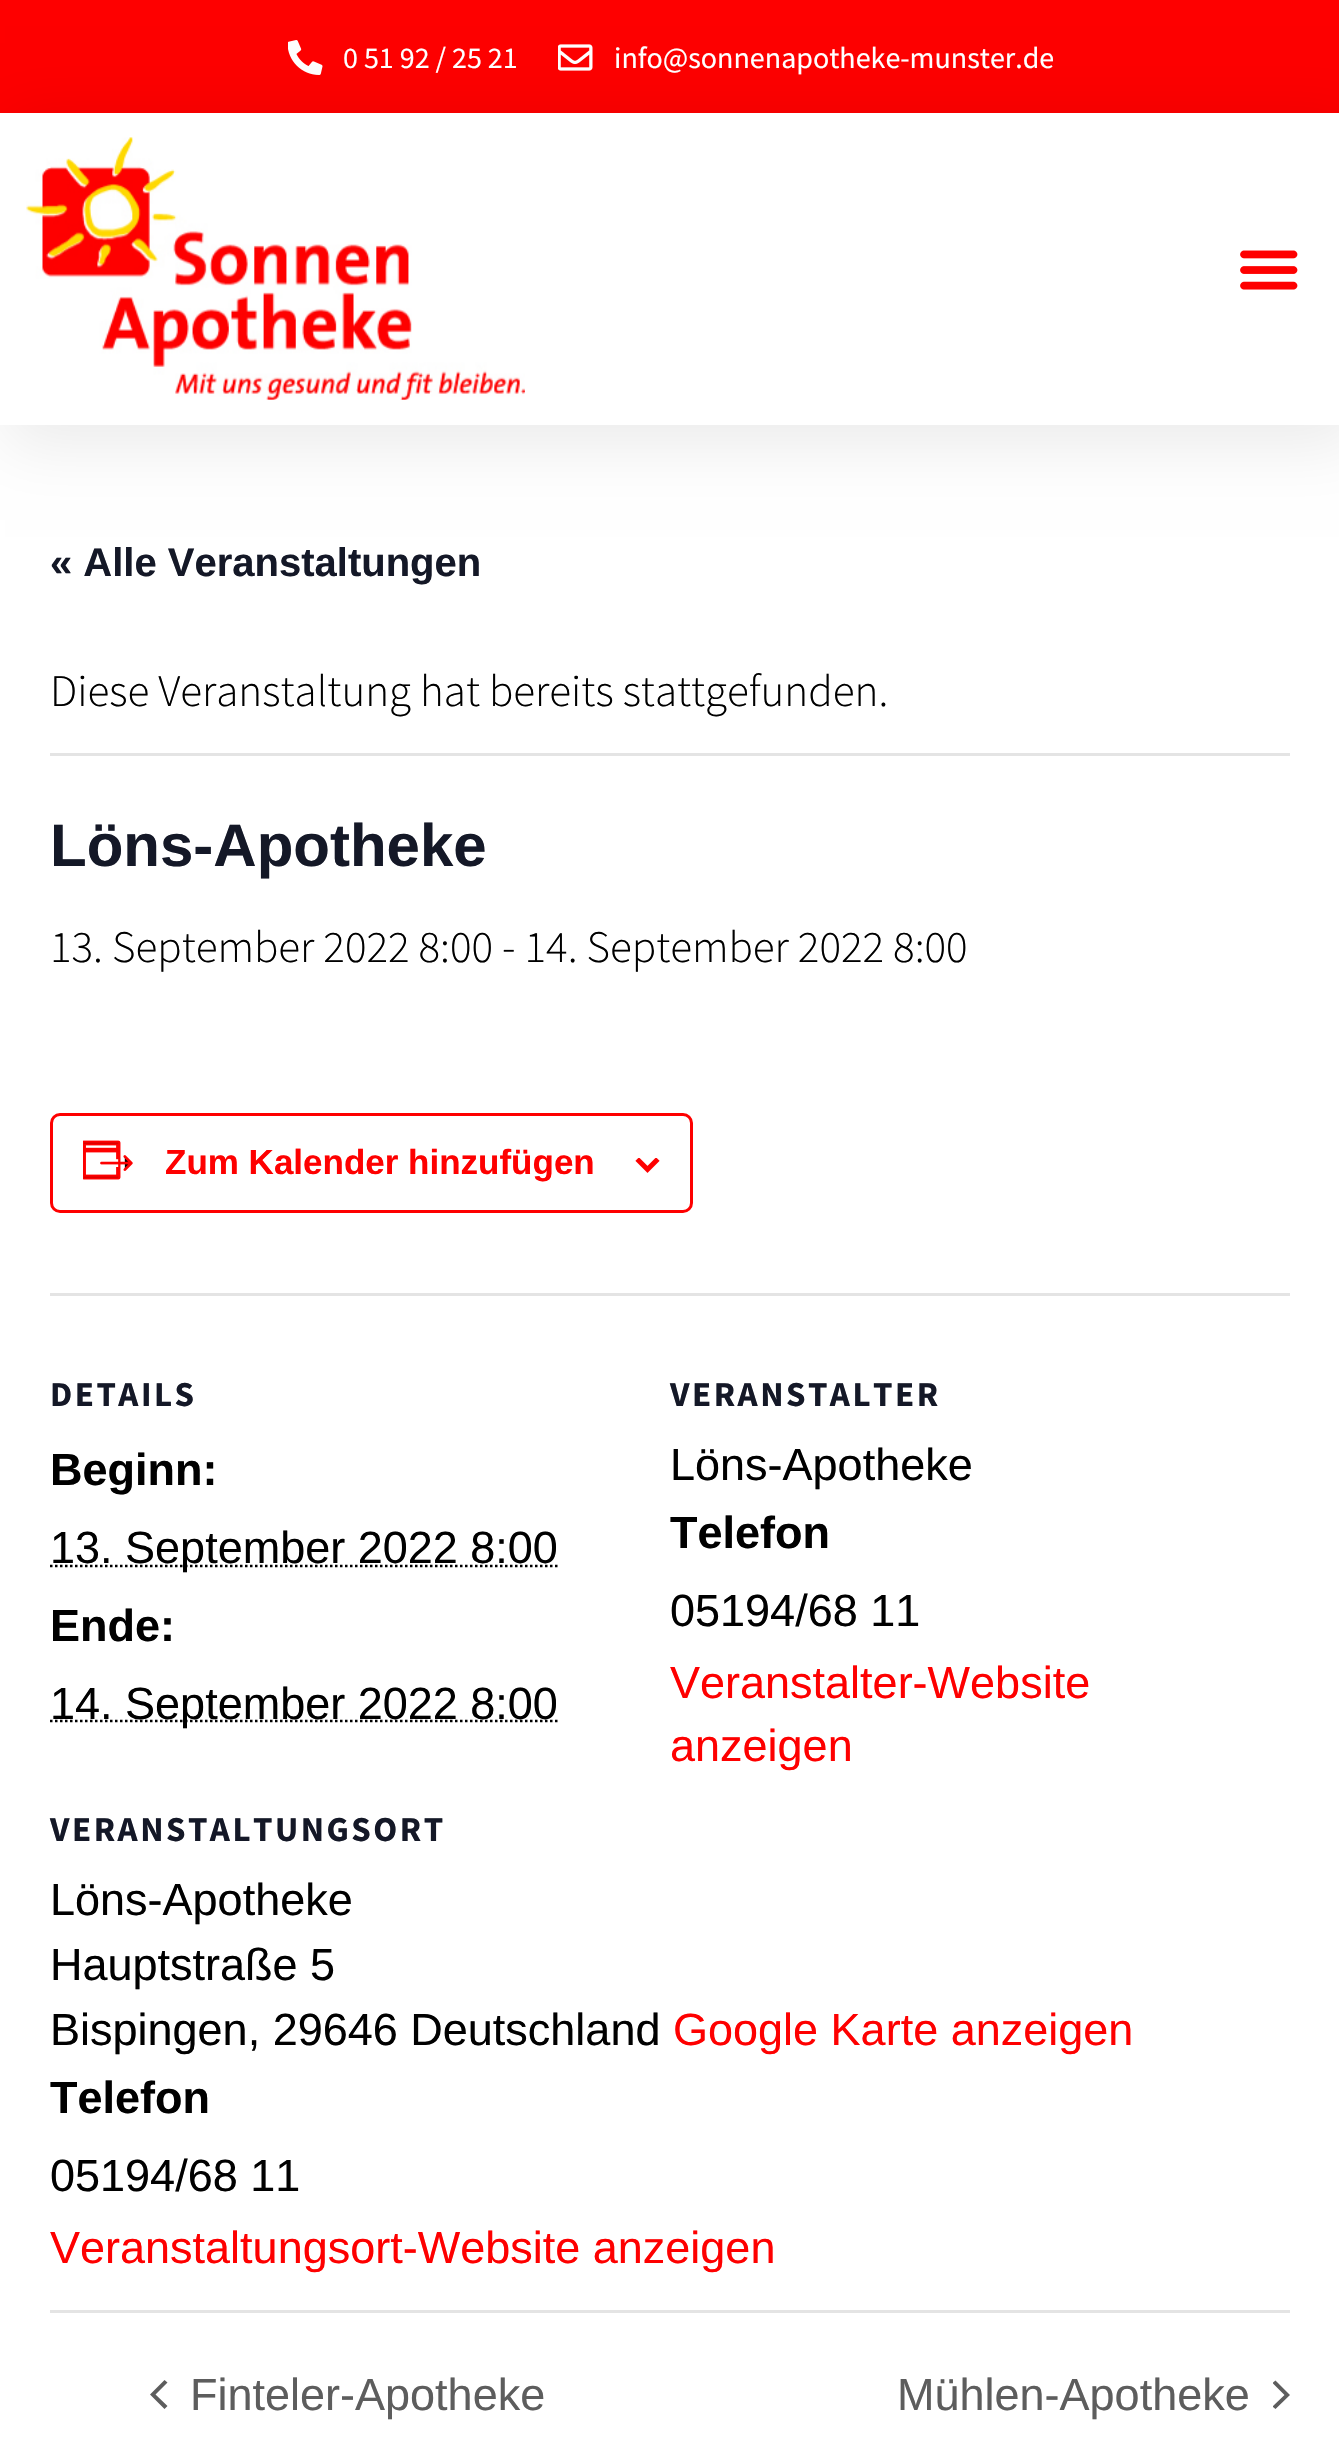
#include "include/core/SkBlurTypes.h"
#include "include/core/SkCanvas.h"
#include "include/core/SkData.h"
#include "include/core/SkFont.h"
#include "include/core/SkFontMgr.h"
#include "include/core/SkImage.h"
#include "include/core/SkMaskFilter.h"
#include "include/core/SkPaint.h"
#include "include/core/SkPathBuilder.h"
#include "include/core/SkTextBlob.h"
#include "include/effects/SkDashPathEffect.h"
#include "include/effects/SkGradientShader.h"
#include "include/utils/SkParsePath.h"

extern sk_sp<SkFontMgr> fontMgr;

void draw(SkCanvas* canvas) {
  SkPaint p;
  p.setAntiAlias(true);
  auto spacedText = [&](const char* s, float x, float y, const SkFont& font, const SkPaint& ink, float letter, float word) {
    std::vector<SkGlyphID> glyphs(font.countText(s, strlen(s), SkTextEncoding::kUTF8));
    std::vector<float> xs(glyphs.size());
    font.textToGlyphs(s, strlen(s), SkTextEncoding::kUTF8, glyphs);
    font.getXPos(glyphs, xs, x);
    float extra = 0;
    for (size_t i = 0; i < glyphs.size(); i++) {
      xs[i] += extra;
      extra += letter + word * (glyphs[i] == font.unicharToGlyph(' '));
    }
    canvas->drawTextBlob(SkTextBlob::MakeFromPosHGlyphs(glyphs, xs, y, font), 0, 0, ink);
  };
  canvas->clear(SK_ColorWHITE);
  p.setColor(SkColorSetRGB(254, 0, 0));
  canvas->drawRect(SkRect::MakeLTRB(0, 0, 1339, 113), p);
  canvas->drawImageRect(SkImages::DeferredFromEncodedData(SkData::MakeFromFileName("images/3.png")), SkRect::MakeLTRB(288, 40, 323, 75), SkSamplingOptions());
  canvas->drawImageRect(SkImages::DeferredFromEncodedData(SkData::MakeFromFileName("images/4.png")), SkRect::MakeLTRB(558, 44, 593, 71), SkSamplingOptions());
  canvas->save();
  canvas->clipPath(SkPathBuilder(SkPathFillType::kEvenOdd).moveTo(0, 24).lineTo(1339, 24).lineTo(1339, 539).lineTo(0, 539).close().moveTo(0, 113).lineTo(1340, 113).lineTo(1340, 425).lineTo(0, 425).close().detach(), true);
  p.setColor(SkColorSetARGB(20, 0, 0, 0));
  p.setMaskFilter(SkMaskFilter::MakeBlur(kNormal_SkBlurStyle, 31));
  canvas->drawRect(SkRect::MakeLTRB(5, 118, 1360, 445), p);
  p.setMaskFilter(nullptr);
  canvas->restore();
  canvas->drawImageRect(SkImages::DeferredFromEncodedData(SkData::MakeFromFileName("images/1.png")), SkRect::MakeLTRB(26, 137, 525, 400), SkSamplingOptions());
  canvas->drawImageRect(SkImages::DeferredFromEncodedData(SkData::MakeFromFileName("images/2.png")), SkRect::MakeLTRB(1240, 250, 1298, 290), SkSamplingOptions());
  p.setColor(SkColorSetRGB(228, 228, 228));
  canvas->drawRect(SkRect::MakeLTRB(50, 753, 1290, 756), p);
  p.setStyle(SkPaint::kStroke_Style);
  p.setStrokeWidth(3);
  p.setColor(SkColorSetRGB(254, 0, 0));
  canvas->drawRoundRect(SkRect::MakeLTRB(51.5f, 1114.5f, 691.5f, 1211.5f), 8.5f, 8.5f, p);
  canvas->drawImageRect(SkImages::DeferredFromEncodedData(SkData::MakeFromFileName("images/5.png")), SkRect::MakeLTRB(83, 1140, 133, 1180), SkSamplingOptions());
  canvas->drawImageRect(SkImages::DeferredFromEncodedData(SkData::MakeFromFileName("images/6.png")), SkRect::MakeLTRB(635, 1158, 660, 1173), SkSamplingOptions());
  p.setStyle(SkPaint::kFill_Style);
  p.setColor(SkColorSetRGB(228, 228, 228));
  canvas->drawRect(SkRect::MakeLTRB(50, 1293, 1290, 1296), p);
  p.setStyle(SkPaint::kStroke_Style);
  p.setStrokeWidth(2.5f);
  p.setColor(SK_ColorBLACK);
  p.setPathEffect(SkDashPathEffect::Make({{2.5f, 2.5f}}, 0));
  canvas->drawPath(SkPathBuilder().moveTo(50, 1566).lineTo(558, 1566).detach(), p);
  p.setPathEffect(nullptr);
  p.setPathEffect(SkDashPathEffect::Make({{2.5f, 2.5f}}, 0));
  canvas->drawPath(SkPathBuilder().moveTo(50, 1721).lineTo(558, 1721).detach(), p);
  p.setPathEffect(nullptr);
  p.setStyle(SkPaint::kFill_Style);
  p.setColor(SkColorSetRGB(228, 228, 228));
  canvas->drawRect(SkRect::MakeLTRB(50, 2310, 1290, 2313), p);
  p.setColor(SkColorSetRGB(93, 93, 93));
  canvas->drawPath(SkPathBuilder().moveTo(167.5f, 2406).lineTo(164.5f, 2409).lineTo(150, 2394.5f).lineTo(164.5f, 2380).lineTo(167.5f, 2382.5f).lineTo(155.5f, 2394.5f).close().detach(), p);
  canvas->save();
  canvas->clipRect(SkRect::MakeLTRB(1273, 2380, 1290, 2410));
  canvas->drawPath(SkPathBuilder().moveTo(1272.5f, 2383).lineTo(1275.5f, 2380.5f).lineTo(1290, 2395).lineTo(1275.5f, 2409).lineTo(1272.5f, 2406.5f).lineTo(1284.5f, 2395).close().detach(), p);
  canvas->restore();
  SkFont font1(fontMgr->matchFamilyStyle("Source Sans Pro", SkFontStyle::Normal()), 30);
  font1.setSubpixel(true);
  p.setColor(SK_ColorWHITE);
  canvas->drawString("0 51 92 / 25 21", 343, 68, font1, p);
  canvas->drawString("info@sonnenapotheke-munster.de", 614, 68, font1, p);
  SkFont font2(fontMgr->matchFamilyStyle("Liberation Sans", SkFontStyle::Bold()), 40);
  font2.setSubpixel(true);
  p.setColor(SkColorSetRGB(20, 24, 39));
  canvas->drawString("« Alle Veranstaltungen", 50, 576, font2, p);
  SkFont font3(fontMgr->matchFamilyStyle("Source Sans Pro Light", SkFontStyle(300, SkFontStyle::kNormal_Width, SkFontStyle::kUpright_Slant)), 45);
  font3.setSubpixel(true);
  p.setColor(SK_ColorBLACK);
  canvas->drawString("Diese Veranstaltung hat bereits stattgefunden.", 50, 706, font3, p);
  SkFont font4(fontMgr->matchFamilyStyle("Liberation Sans", SkFontStyle::Bold()), 60);
  font4.setSubpixel(true);
  p.setColor(SkColorSetRGB(20, 24, 39));
  canvas->drawString("Löns-Apotheke", 50, 866, font4, p);
  p.setColor(SK_ColorBLACK);
  canvas->drawString("13. September 2022 8:00 - 14. September 2022 8:00", 50, 962, font3, p);
  SkFont font5(fontMgr->matchFamilyStyle("Liberation Sans", SkFontStyle::Bold()), 35);
  font5.setSubpixel(true);
  p.setColor(SkColorSetRGB(254, 0, 0));
  canvas->drawString("Zum Kalender hinzufügen", 165, 1174, font5, p);
  SkFont font6(fontMgr->matchFamilyStyle("Source Sans Pro", SkFontStyle::Bold()), 35);
  font6.setSubpixel(true);
  p.setColor(SkColorSetRGB(20, 24, 39));
  spacedText("DETAILS", 50, 1406, font6, p, 2.5f, 0);
  SkFont font7(fontMgr->matchFamilyStyle("Liberation Sans", SkFontStyle::Bold()), 45);
  font7.setSubpixel(true);
  p.setColor(SK_ColorBLACK);
  canvas->drawString("Beginn:", 50, 1485, font7, p);
  SkFont font8(fontMgr->matchFamilyStyle("Liberation Sans", SkFontStyle::Normal()), 45);
  font8.setSubpixel(true);
  canvas->drawString("13. September 2022 8:00", 50, 1563, font8, p);
  canvas->drawString("Ende:", 50, 1641, font7, p);
  canvas->drawString("14. September 2022 8:00", 50, 1719, font8, p);
  p.setColor(SkColorSetRGB(20, 24, 39));
  spacedText("VERANSTALTER", 670, 1406, font6, p, 2.5f, 0);
  p.setColor(SK_ColorBLACK);
  canvas->drawString("Löns-Apotheke", 670, 1480, font8, p);
  canvas->drawString("Telefon", 670, 1548, font7, p);
  canvas->drawString("05194/68 11", 670, 1626, font8, p);
  p.setColor(SkColorSetRGB(254, 0, 0));
  canvas->drawString("Veranstalter-Website", 670, 1698, font8, p);
  canvas->drawString("anzeigen", 670, 1761, font8, p);
  p.setColor(SkColorSetRGB(20, 24, 39));
  spacedText("VERANSTALTUNGSORT", 50, 1841, font6, p, 2.5f, 0);
  p.setColor(SK_ColorBLACK);
  canvas->drawString("Löns-Apotheke", 50, 1915, font8, p);
  canvas->drawString("Hauptstraße 5", 50, 1980, font8, p);
  canvas->drawString("Bispingen, 29646 Deutschland", 50, 2045, font8, p);
  p.setColor(SkColorSetRGB(254, 0, 0));
  canvas->drawString("Google Karte anzeigen", 673, 2045, font8, p);
  p.setColor(SK_ColorBLACK);
  canvas->drawString("Telefon", 50, 2113, font7, p);
  canvas->drawString("05194/68 11", 50, 2191, font8, p);
  p.setColor(SkColorSetRGB(254, 0, 0));
  canvas->drawString("Veranstaltungsort-Website anzeigen", 50, 2263, font8, p);
  p.setColor(SkColorSetRGB(93, 93, 93));
  canvas->drawString("Finteler-Apotheke", 190, 2410, font8, p);
  canvas->drawString("Mühlen-Apotheke", 897, 2410, font8, p);
}
